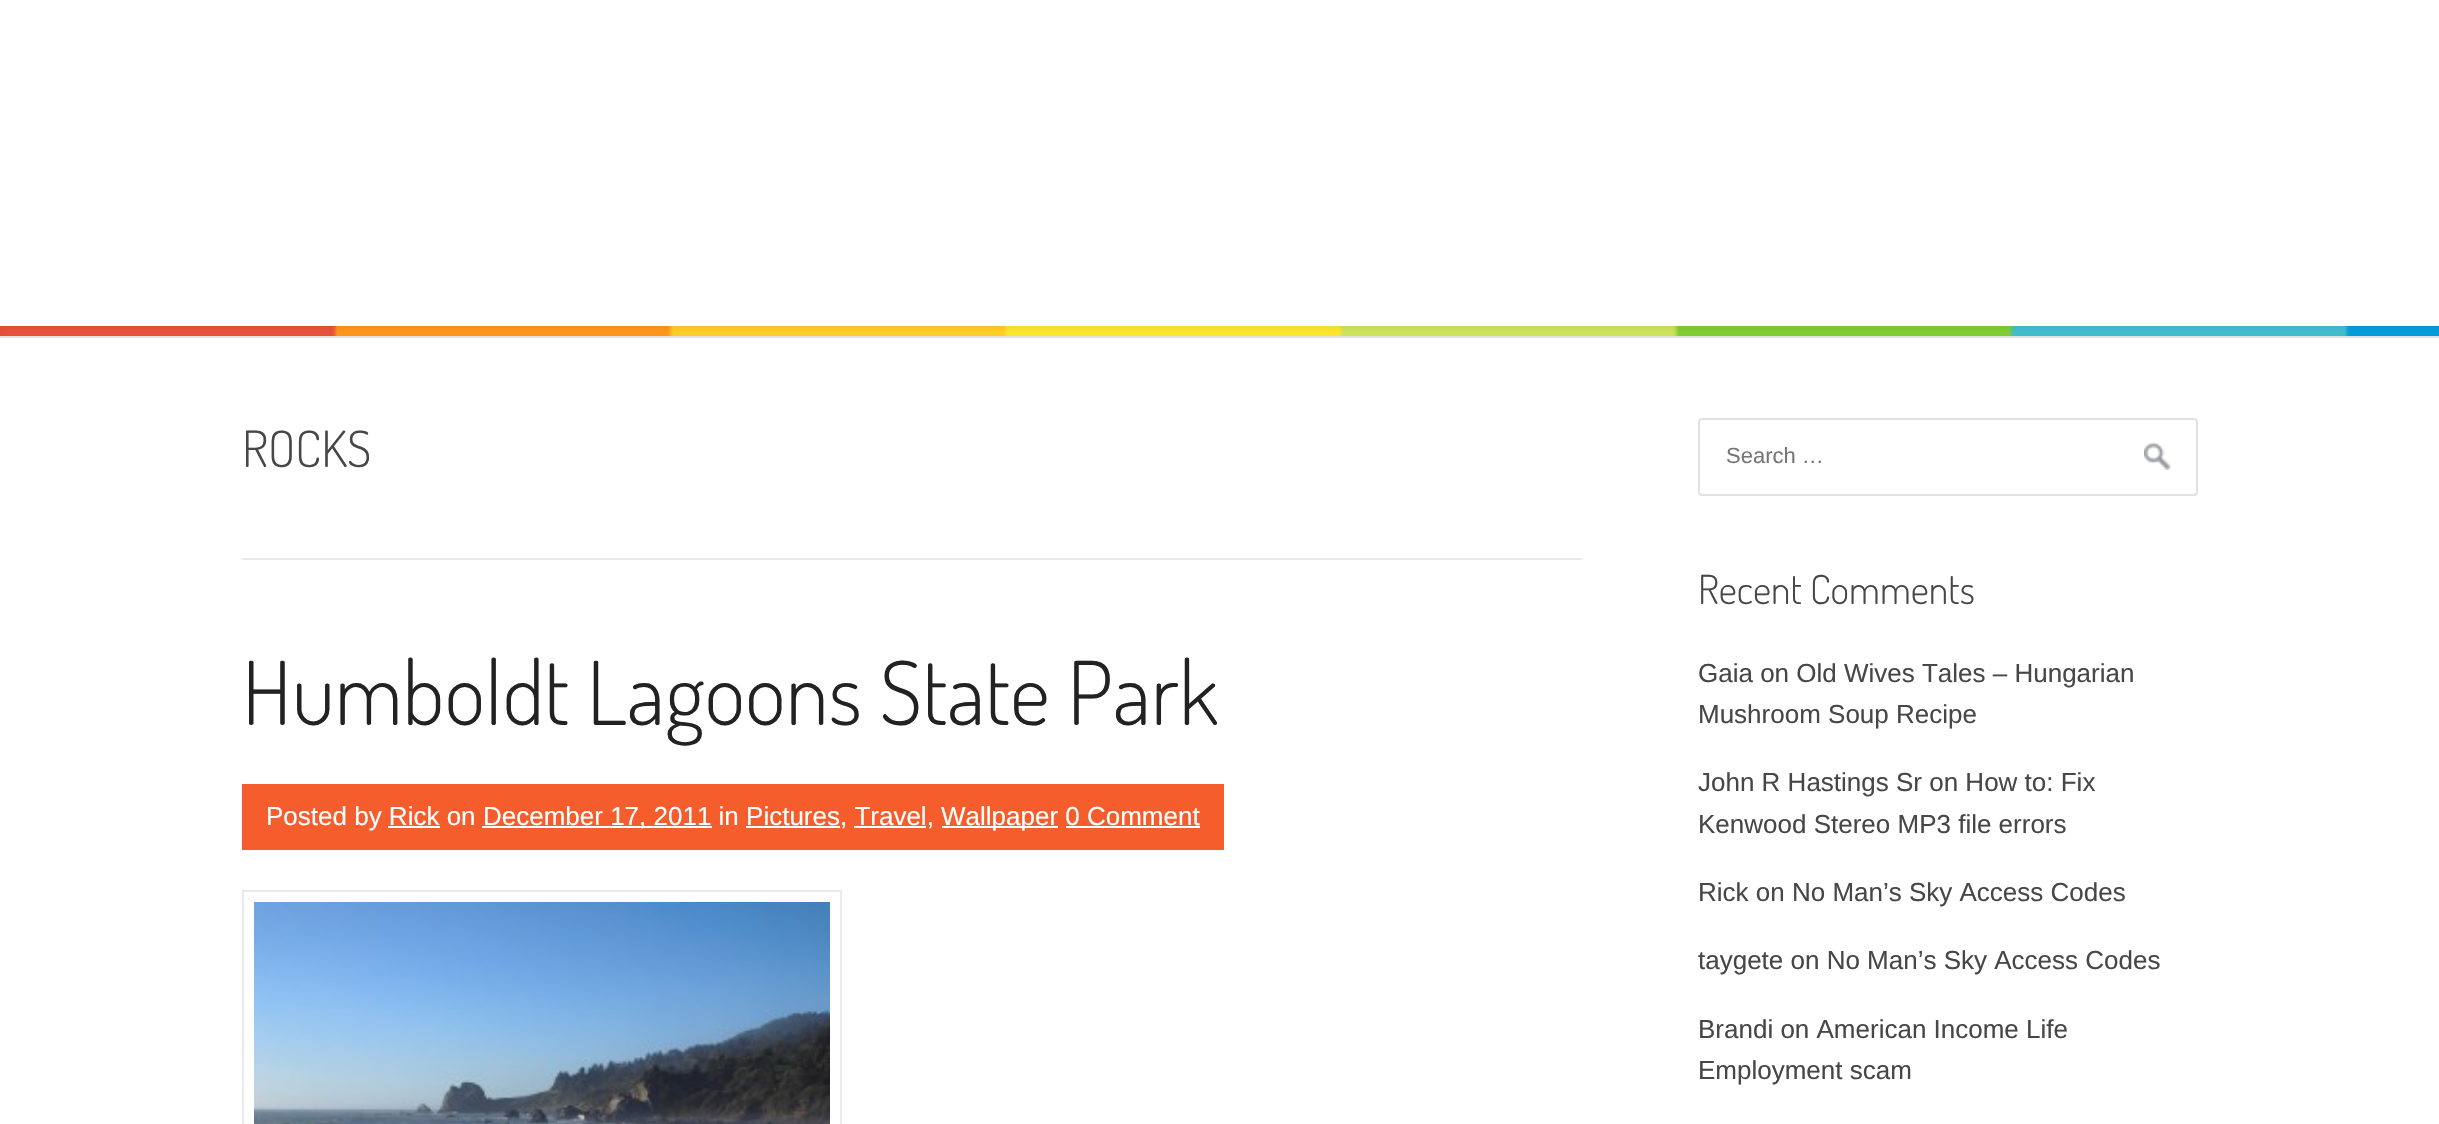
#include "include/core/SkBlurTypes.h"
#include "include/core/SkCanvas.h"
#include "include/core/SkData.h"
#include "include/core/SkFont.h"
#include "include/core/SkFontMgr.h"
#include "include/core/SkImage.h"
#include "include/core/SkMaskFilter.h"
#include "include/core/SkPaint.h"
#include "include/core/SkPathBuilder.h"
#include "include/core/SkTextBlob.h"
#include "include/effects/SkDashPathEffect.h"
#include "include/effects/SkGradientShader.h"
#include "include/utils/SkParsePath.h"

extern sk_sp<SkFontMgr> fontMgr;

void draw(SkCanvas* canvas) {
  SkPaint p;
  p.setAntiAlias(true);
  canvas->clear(SK_ColorWHITE);
  canvas->drawImageRect(SkImages::DeferredFromEncodedData(SkData::MakeFromFileName("images/1.png")), SkRect::MakeLTRB(0, 326, 2439, 336), SkSamplingOptions());
  p.setColor(SkColorSetRGB(226, 226, 226));
  canvas->drawRect(SkRect::MakeLTRB(0, 336, 2439, 338), p);
  p.setColor(SkColorSetRGB(234, 234, 234));
  canvas->drawRect(SkRect::MakeLTRB(242, 558, 1582, 560), p);
  p.setColor(SkColorSetRGB(245, 93, 45));
  canvas->drawRect(SkRect::MakeLTRB(242, 784, 1224, 850), p);
  p.setColor(SK_ColorWHITE);
  canvas->drawRect(SkRect::MakeLTRB(388, 826, 440, 828), p);
  canvas->drawRect(SkRect::MakeLTRB(482, 826, 712, 828), p);
  canvas->drawRect(SkRect::MakeLTRB(746, 826, 840, 828), p);
  canvas->drawRect(SkRect::MakeLTRB(854, 826, 926, 828), p);
  canvas->drawRect(SkRect::MakeLTRB(942, 826, 1058, 828), p);
  canvas->drawRect(SkRect::MakeLTRB(1066, 826, 1200, 828), p);
  p.setStyle(SkPaint::kStroke_Style);
  p.setStrokeWidth(2);
  p.setColor(SkColorSetRGB(234, 234, 234));
  canvas->drawRect(SkRect::MakeLTRB(243, 891, 841, 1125), p);
  canvas->drawImageRect(SkImages::DeferredFromEncodedData(SkData::MakeFromFileName("images/2.png")), SkRect::MakeLTRB(254, 902, 830, 1124), SkSamplingOptions());
  canvas->drawImageRect(SkImages::DeferredFromEncodedData(SkData::MakeFromFileName("images/3.png")), SkRect::MakeLTRB(2144, 442, 2171, 470), SkSamplingOptions());
  p.setColor(SkColorSetRGB(226, 226, 226));
  canvas->drawRoundRect(SkRect::MakeLTRB(1699, 419, 2197, 495), 3, 3, p);
  SkFont font1(fontMgr->matchFamilyStyle("Dosis", SkFontStyle(300, SkFontStyle::kNormal_Width, SkFontStyle::kUpright_Slant)), 50);
  font1.setSubpixel(true);
  p.setStyle(SkPaint::kFill_Style);
  p.setColor(SkColorSetRGB(71, 71, 71));
  canvas->drawString("ROCKS", 242, 467, font1, p);
  SkFont font2(fontMgr->matchFamilyStyle("Dosis", SkFontStyle(300, SkFontStyle::kNormal_Width, SkFontStyle::kUpright_Slant)), 88);
  font2.setSubpixel(true);
  p.setColor(SkColorSetRGB(34, 34, 34));
  canvas->drawString("Humboldt Lagoons State Park", 242, 725, font2, p);
  SkFont font3(fontMgr->matchFamilyStyle("Liberation Sans", SkFontStyle::Normal()), 26);
  font3.setSubpixel(true);
  p.setColor(SK_ColorWHITE);
  canvas->drawString("Posted by Rick on", 266, 825, font3, p);
  canvas->drawString("December 17, 2011 in Pictures, Travel,", 483, 825, font3, p);
  canvas->drawString("Wallpaper 0 Comment", 941, 825, font3, p);
  SkFont font4(fontMgr->matchFamilyStyle("Liberation Sans", SkFontStyle::Normal()), 22);
  font4.setSubpixel(true);
  p.setColor(SkColorSetRGB(117, 117, 117));
  canvas->drawString("Search …", 1726, 463, font4, p);
  SkFont font5(fontMgr->matchFamilyStyle("Dosis", SkFontStyle(300, SkFontStyle::kNormal_Width, SkFontStyle::kUpright_Slant)), 40);
  font5.setSubpixel(true);
  p.setColor(SkColorSetRGB(71, 71, 71));
  canvas->drawString("Recent Comments", 1698, 604, font5, p);
  canvas->drawString("Gaia on Old Wives Tales – Hungarian", 1698, 682, font3, p);
  canvas->drawString("Mushroom Soup Recipe", 1698, 723, font3, p);
  canvas->drawString("John R Hastings Sr on How to: Fix", 1698, 791, font3, p);
  canvas->drawString("Kenwood Stereo MP3 file errors", 1698, 833, font3, p);
  canvas->drawString("Rick on No Man’s Sky Access Codes", 1698, 901, font3, p);
  canvas->drawString("taygete on No Man’s Sky Access Codes", 1698, 969, font3, p);
  canvas->drawString("Brandi on American Income Life", 1698, 1038, font3, p);
  canvas->drawString("Employment scam", 1698, 1079, font3, p);
}
